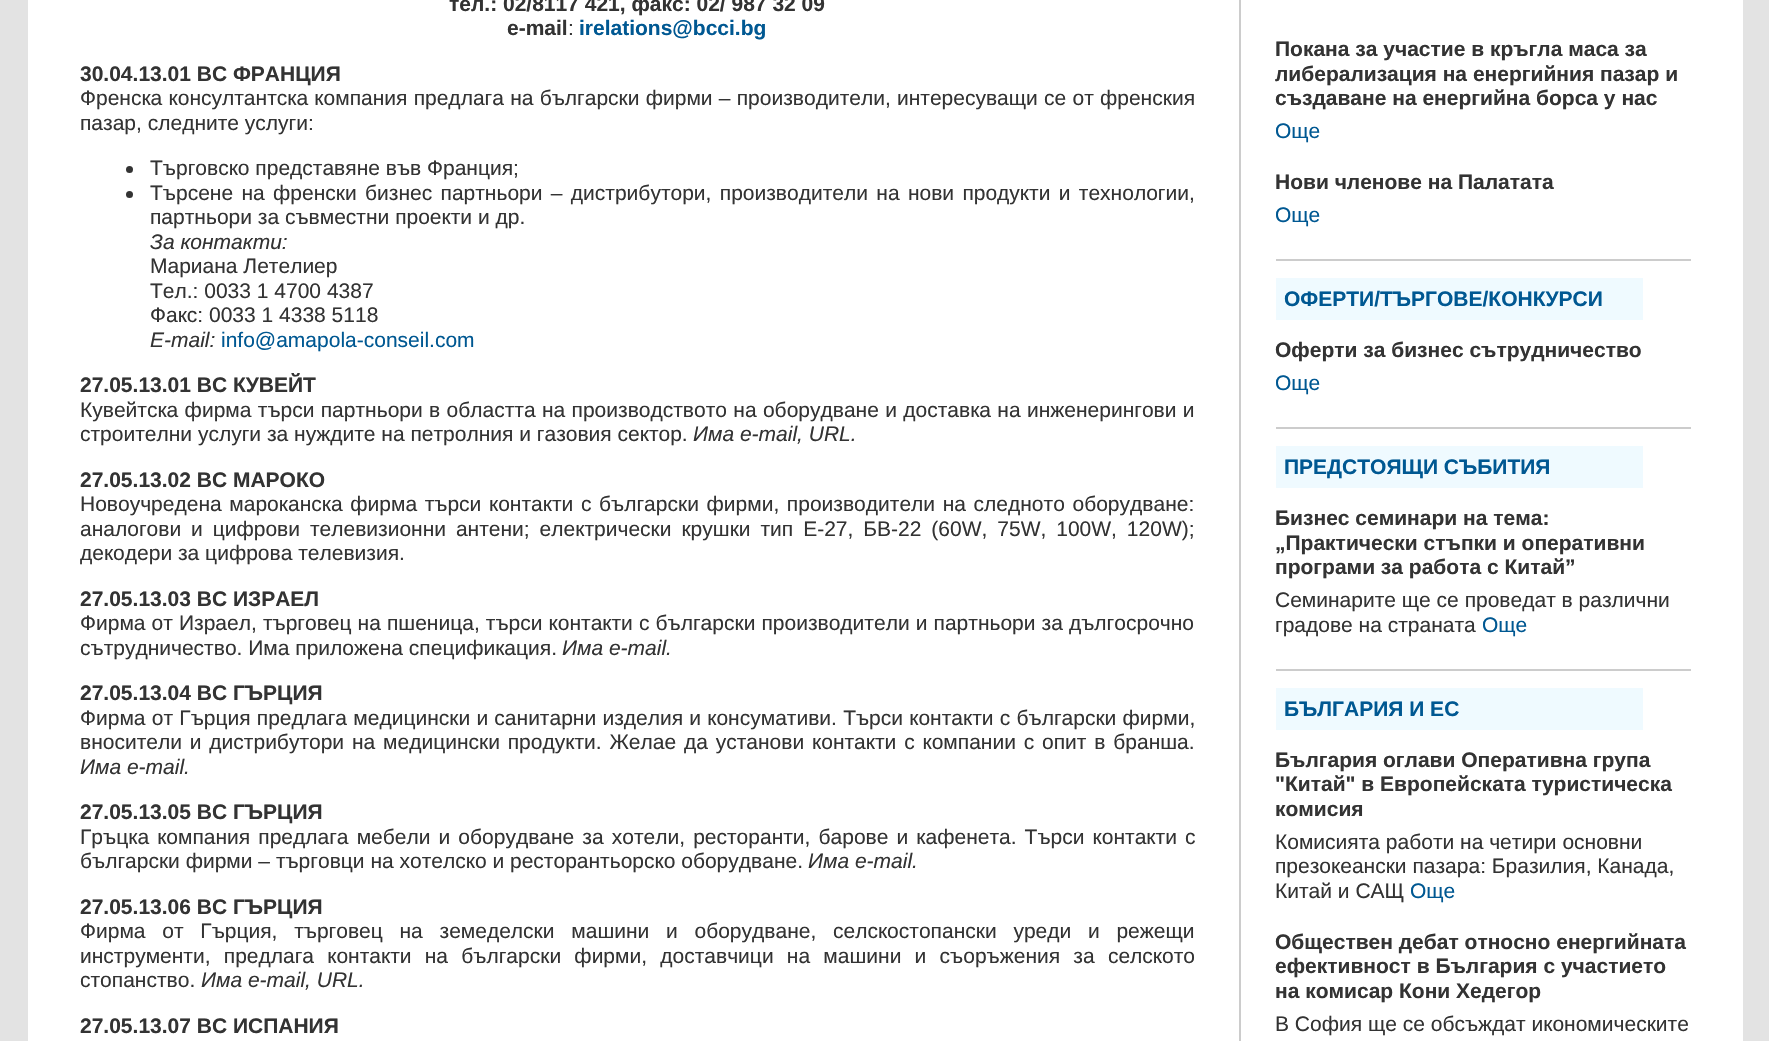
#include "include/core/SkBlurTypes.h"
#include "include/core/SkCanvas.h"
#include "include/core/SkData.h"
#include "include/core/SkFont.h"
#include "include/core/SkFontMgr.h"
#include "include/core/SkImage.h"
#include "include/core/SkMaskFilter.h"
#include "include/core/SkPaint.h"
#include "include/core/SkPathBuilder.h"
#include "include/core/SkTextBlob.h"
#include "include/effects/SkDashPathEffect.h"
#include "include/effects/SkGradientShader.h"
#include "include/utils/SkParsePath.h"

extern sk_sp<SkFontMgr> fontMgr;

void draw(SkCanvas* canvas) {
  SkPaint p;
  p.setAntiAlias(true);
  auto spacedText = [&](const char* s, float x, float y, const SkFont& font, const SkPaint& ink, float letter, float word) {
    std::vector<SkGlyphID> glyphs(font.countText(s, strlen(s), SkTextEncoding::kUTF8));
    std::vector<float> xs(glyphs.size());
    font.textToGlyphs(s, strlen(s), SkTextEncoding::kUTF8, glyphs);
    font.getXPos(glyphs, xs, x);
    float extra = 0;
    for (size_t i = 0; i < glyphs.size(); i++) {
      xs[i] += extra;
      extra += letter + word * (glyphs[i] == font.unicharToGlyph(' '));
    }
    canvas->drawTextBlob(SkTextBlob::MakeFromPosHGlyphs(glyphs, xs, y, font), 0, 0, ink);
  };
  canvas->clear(SkColorSetRGB(227, 227, 227));
  p.setColor(SK_ColorWHITE);
  canvas->drawRect(SkRect::MakeLTRB(28, 0, 1743, 1041), p);
  p.setColor(SkColorSetRGB(204, 204, 204));
  canvas->drawRect(SkRect::MakeLTRB(1239, 0, 1241, 1041), p);
  p.setColor(SkColorSetRGB(51, 51, 51));
  canvas->drawCircle(129.5f, 169.5f, 3.5f, p);
  canvas->drawCircle(129.5f, 194.5f, 3.5f, p);
  p.setColor(SkColorSetRGB(204, 204, 204));
  canvas->drawRect(SkRect::MakeLTRB(1276, 259, 1691, 261), p);
  canvas->drawRect(SkRect::MakeLTRB(1276, 427, 1691, 429), p);
  p.setColor(SkColorSetRGB(239, 250, 255));
  canvas->drawRect(SkRect::MakeLTRB(1276, 278, 1643, 320), p);
  p.setColor(SkColorSetRGB(204, 204, 204));
  canvas->drawRect(SkRect::MakeLTRB(1276, 669, 1691, 671), p);
  p.setColor(SkColorSetRGB(239, 250, 255));
  canvas->drawRect(SkRect::MakeLTRB(1276, 446, 1643, 488), p);
  canvas->drawRect(SkRect::MakeLTRB(1276, 688, 1643, 730), p);
  SkFont font1(fontMgr->matchFamilyStyle("Liberation Sans", SkFontStyle::Bold()), 21);
  font1.setSubpixel(true);
  p.setColor(SkColorSetRGB(51, 51, 51));
  canvas->drawString("тел.: 02/8117 421, факс: 02/ 987 32 09", 449, 11, font1, p);
  canvas->drawString("e-mail", 507, 35, font1, p);
  SkFont font2(fontMgr->matchFamilyStyle("Liberation Sans", SkFontStyle::Normal()), 21);
  font2.setSubpixel(true);
  canvas->drawString(":", 568, 35, font2, p);
  p.setColor(SkColorSetRGB(0, 88, 146));
  canvas->drawString("irelations@bcci.bg", 579, 35, font1, p);
  p.setColor(SkColorSetRGB(51, 51, 51));
  canvas->drawString("30.04.13.01 BC ФРАНЦИЯ", 80, 81, font1, p);
  spacedText("Френска консултантска компания предлага на български фирми – производители, интересуващи се от френския", 80, 105, font2, p, 0, 0.4f);
  canvas->drawString("пазар, следните услуги:", 80, 130, font2, p);
  canvas->drawString("Търговско представяне във Франция;", 150, 175, font2, p);
  spacedText("Търсене на френски бизнес партньори – дистрибутори, производители на нови продукти и технологии,", 150, 200, font2, p, 0, 2.5f);
  canvas->drawString("партньори за съвместни проекти и др.", 150, 224, font2, p);
  SkFont font3(fontMgr->matchFamilyStyle("Liberation Sans", SkFontStyle::Italic()), 21);
  font3.setSubpixel(true);
  canvas->drawString("За контакти:", 150, 249, font3, p);
  canvas->drawString("Мариана Летелиер", 150, 273, font2, p);
  canvas->drawString("Тел.: 0033 1 4700 4387", 150, 298, font2, p);
  canvas->drawString("Факс: 0033 1 4338 5118", 150, 322, font2, p);
  canvas->drawString("E-mail:", 150, 347, font3, p);
  p.setColor(SkColorSetRGB(0, 88, 146));
  canvas->drawString("info@amapola-conseil.com", 221, 347, font2, p);
  p.setColor(SkColorSetRGB(51, 51, 51));
  canvas->drawString("27.05.13.01 BC КУВЕЙТ", 80, 392, font1, p);
  spacedText("Кувейтска фирма търси партньори в областта на производството на оборудване и доставка на инженерингови и", 80, 417, font2, p, 0, 0.5f);
  canvas->drawString("строителни услуги за нуждите на петролния и газовия сектор.", 80, 441, font2, p);
  canvas->drawString("Има е-mail, URL.", 693, 441, font3, p);
  canvas->drawString("27.05.13.02 BC МАРОКО", 80, 487, font1, p);
  spacedText("Новоучредена мароканска фирма търси контакти с български фирми, производители на следното оборудване:", 80, 511, font2, p, 0, 1.8f);
  spacedText("аналогови и цифрови телевизионни антени; електрически крушки тип Е-27, БВ-22 (60W, 75W, 100W, 120W);", 80, 536, font2, p, 0, 4.1f);
  canvas->drawString("декодери за цифрова телевизия.", 80, 560, font2, p);
  canvas->drawString("27.05.13.03 BC ИЗРАЕЛ", 80, 606, font1, p);
  spacedText("Фирма от Израел, търговец на пшеница, търси контакти с български производители и партньори за дългосрочно", 80, 630, font2, p, 0, 0.25f);
  canvas->drawString("сътрудничество. Има приложена спецификация.", 80, 655, font2, p);
  canvas->drawString("Има е-mail.", 562, 655, font3, p);
  canvas->drawString("27.05.13.04 BC ГЪРЦИЯ", 80, 700, font1, p);
  spacedText("Фирма от Гърция предлага медицински и санитарни изделия и консумативи. Търси контакти с български фирми,", 80, 725, font2, p, 0, 0.4f);
  spacedText("вносители и дистрибутори на медицински продукти. Желае да установи контакти с компании с опит в бранша.", 80, 749, font2, p, 0, 2);
  canvas->drawString("Има е-mail.", 80, 774, font3, p);
  canvas->drawString("27.05.13.05 BC ГЪРЦИЯ", 80, 819, font1, p);
  spacedText("Гръцка компания предлага мебели и оборудване за хотели, ресторанти, барове и кафенета. Търси контакти с", 80, 844, font2, p, 0, 2.25f);
  canvas->drawString("български фирми – търговци на хотелско и ресторантьорско оборудване.", 80, 868, font2, p);
  canvas->drawString("Има e-mail.", 808, 868, font3, p);
  canvas->drawString("27.05.13.06 BC ГЪРЦИЯ", 80, 914, font1, p);
  spacedText("Фирма от Гърция, търговец на земеделски машини и оборудване, селскостопански уреди и режещи", 80, 938, font2, p, 0, 10.9f);
  spacedText("инструменти, предлага контакти на български фирми, доставчици на машини и съоръжения за селското", 80, 963, font2, p, 0, 7.4f);
  canvas->drawString("стопанство.", 80, 987, font2, p);
  canvas->drawString("Има е-mail, URL.", 201, 987, font3, p);
  canvas->drawString("27.05.13.07 BC ИСПАНИЯ", 80, 1033, font1, p);
  canvas->drawString("Покана за участие в кръгла маса за", 1275, 56, font1, p);
  canvas->drawString("либерализация на енергийния пазар и", 1275, 81, font1, p);
  canvas->drawString("създаване на енергийна борса у нас", 1275, 105, font1, p);
  p.setColor(SkColorSetRGB(0, 88, 146));
  canvas->drawString("Още", 1275, 138, font2, p);
  p.setColor(SkColorSetRGB(51, 51, 51));
  canvas->drawString("Нови членове на Палатата", 1275, 189, font1, p);
  p.setColor(SkColorSetRGB(0, 88, 146));
  canvas->drawString("Още", 1275, 222, font2, p);
  canvas->drawString("ОФЕРТИ/ТЪРГОВЕ/КОНКУРСИ", 1284, 306, font1, p);
  p.setColor(SkColorSetRGB(51, 51, 51));
  canvas->drawString("Оферти за бизнес сътрудничество", 1275, 357, font1, p);
  p.setColor(SkColorSetRGB(0, 88, 146));
  canvas->drawString("Още", 1275, 390, font2, p);
  canvas->drawString("ПРЕДСТОЯЩИ СЪБИТИЯ", 1284, 474, font1, p);
  p.setColor(SkColorSetRGB(51, 51, 51));
  canvas->drawString("Бизнес семинари на тема:", 1275, 525, font1, p);
  canvas->drawString("„Практически стъпки и оперативни", 1275, 550, font1, p);
  canvas->drawString("програми за работа с Китай”", 1275, 574, font1, p);
  canvas->drawString("Семинарите ще се проведат в различни", 1275, 607, font2, p);
  canvas->drawString("градове на страната", 1275, 632, font2, p);
  p.setColor(SkColorSetRGB(0, 88, 146));
  canvas->drawString("Още", 1482, 632, font2, p);
  canvas->drawString("БЪЛГАРИЯ И ЕС", 1284, 716, font1, p);
  p.setColor(SkColorSetRGB(51, 51, 51));
  canvas->drawString("България оглави Оперативна група", 1275, 767, font1, p);
  canvas->drawString("\"Китай\" в Европейската туристическа", 1275, 791, font1, p);
  canvas->drawString("комисия", 1275, 816, font1, p);
  canvas->drawString("Комисията работи на четири основни", 1275, 849, font2, p);
  canvas->drawString("презокеански пазара: Бразилия, Канада,", 1275, 873, font2, p);
  canvas->drawString("Китай и САЩ", 1275, 898, font2, p);
  p.setColor(SkColorSetRGB(0, 88, 146));
  canvas->drawString("Още", 1410, 898, font2, p);
  p.setColor(SkColorSetRGB(51, 51, 51));
  canvas->drawString("Обществен дебат относно енергийната", 1275, 949, font1, p);
  canvas->drawString("ефективност в България с участието", 1275, 973, font1, p);
  canvas->drawString("на комисар Кони Хедегор", 1275, 998, font1, p);
  canvas->drawString("В София ще се обсъждат икономическите", 1275, 1031, font2, p);
}
